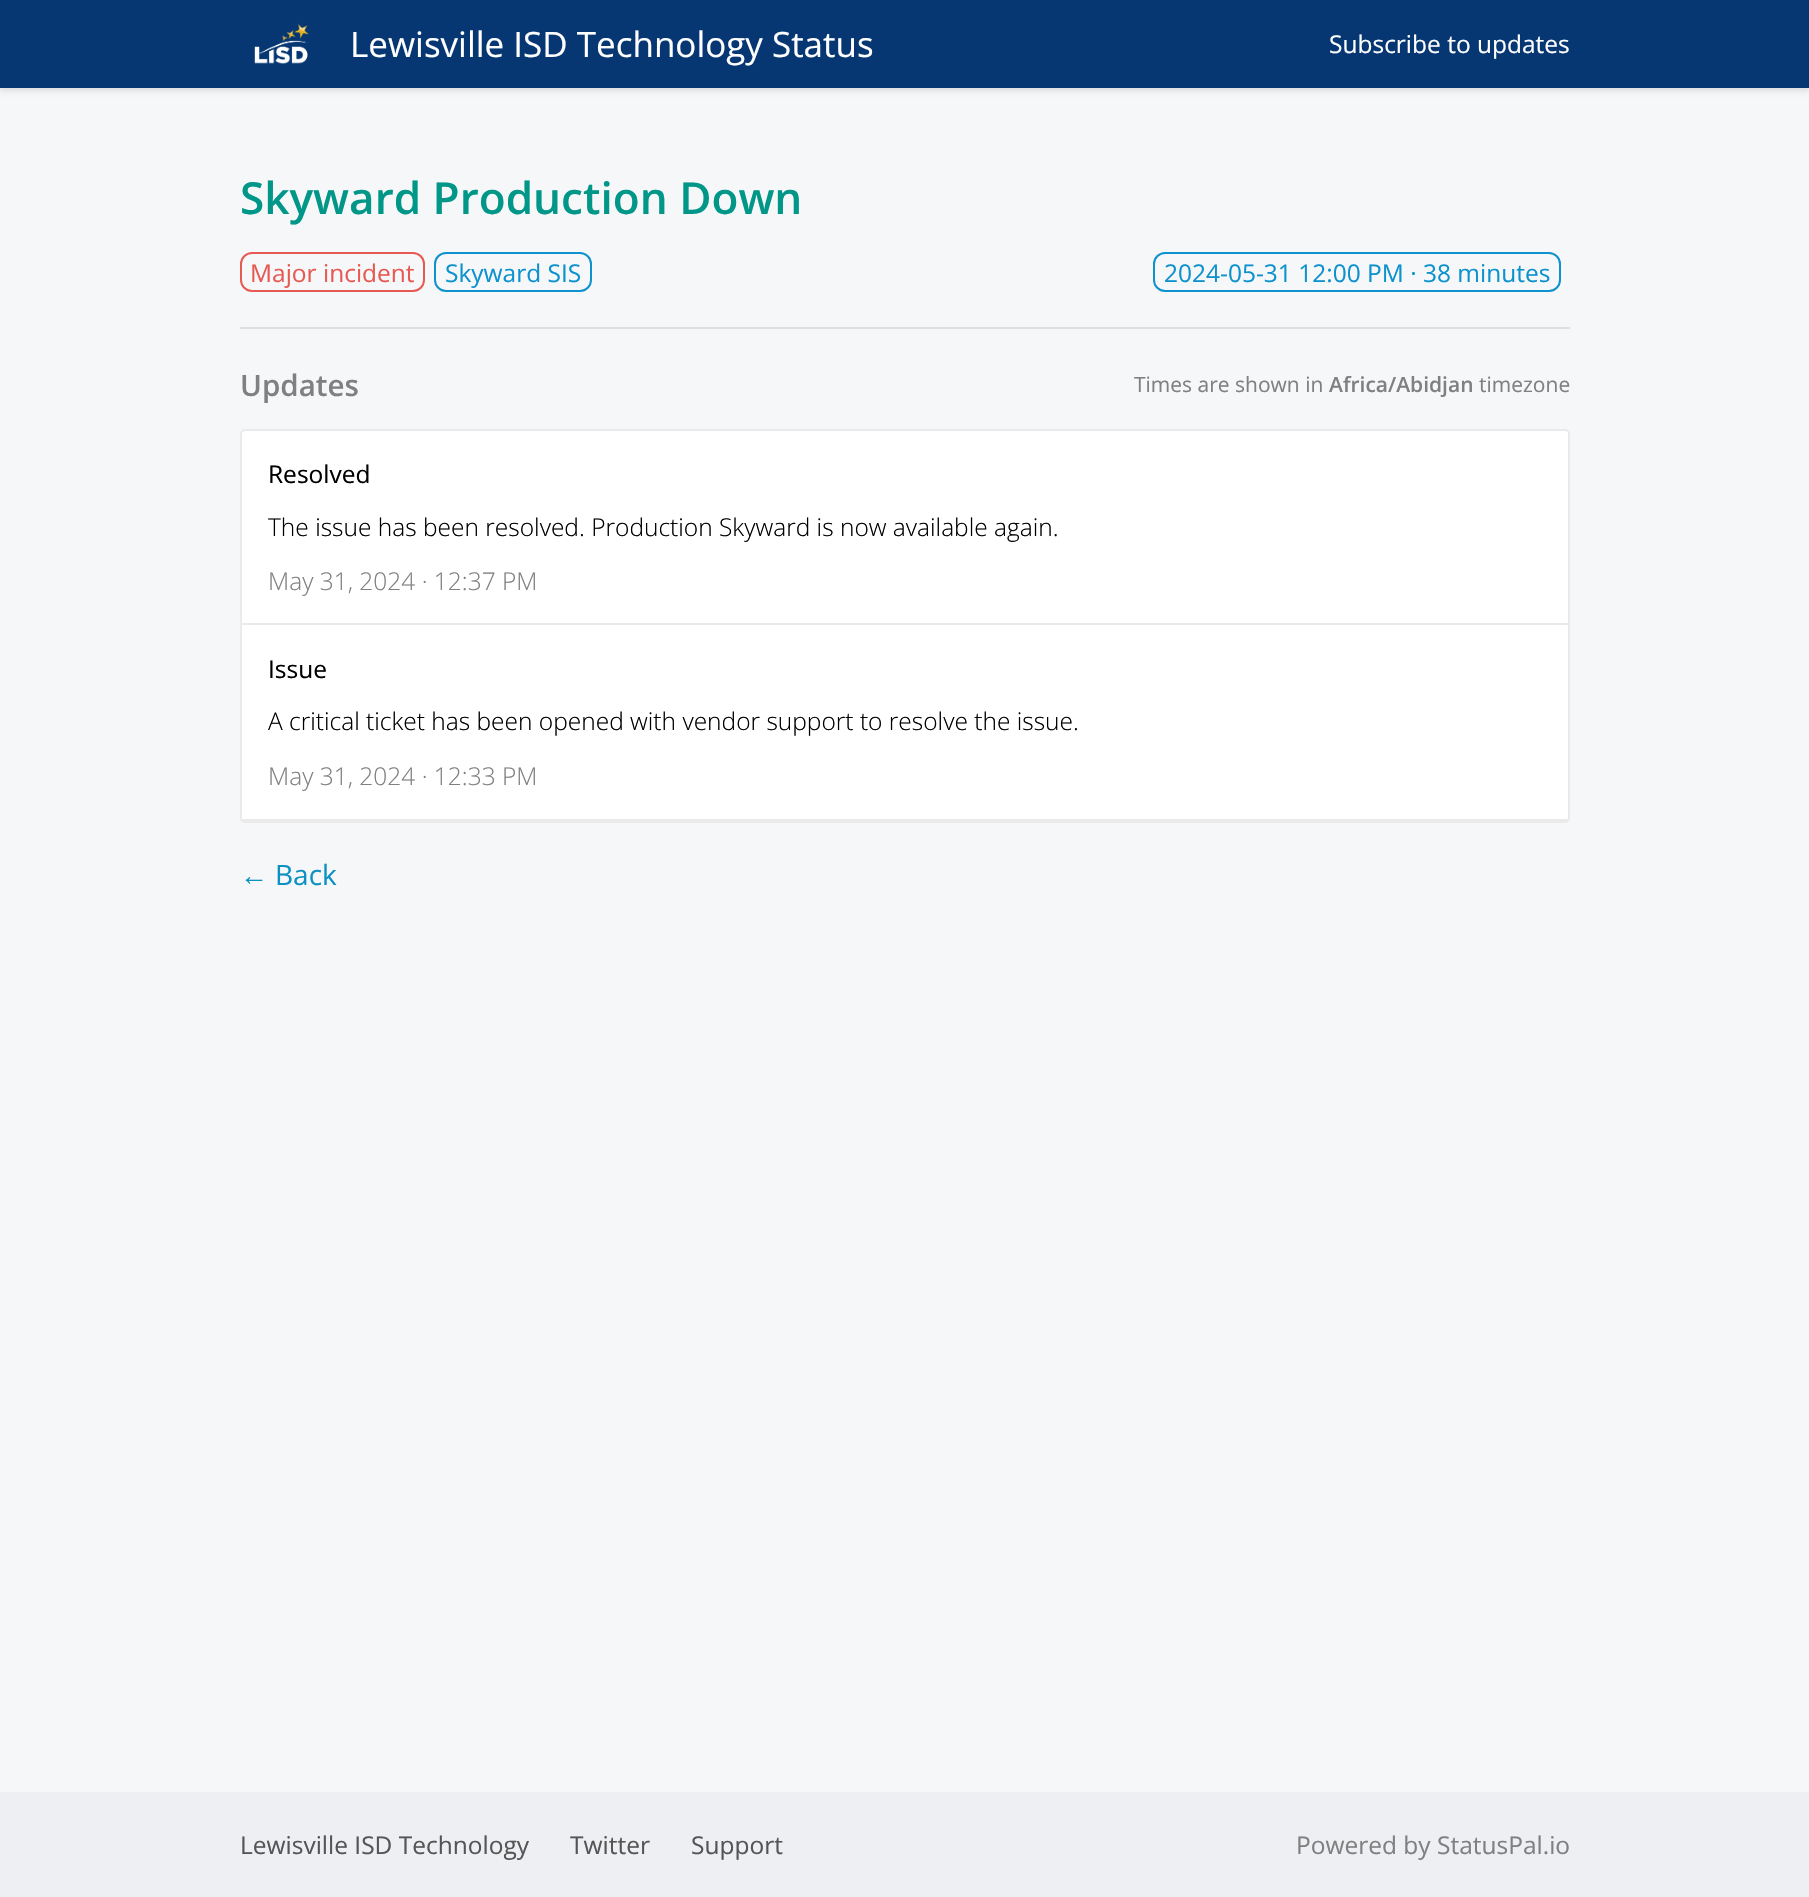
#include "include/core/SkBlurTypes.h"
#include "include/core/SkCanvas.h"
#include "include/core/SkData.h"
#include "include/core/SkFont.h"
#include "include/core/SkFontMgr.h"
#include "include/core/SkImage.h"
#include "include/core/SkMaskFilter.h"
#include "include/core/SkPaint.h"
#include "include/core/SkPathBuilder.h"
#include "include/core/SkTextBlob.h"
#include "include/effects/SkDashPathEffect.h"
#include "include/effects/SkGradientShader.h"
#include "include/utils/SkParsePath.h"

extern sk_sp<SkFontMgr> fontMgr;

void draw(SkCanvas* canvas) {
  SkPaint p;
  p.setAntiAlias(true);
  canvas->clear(SkColorSetRGB(246, 247, 249));
  p.setColor(SkColorSetARGB(26, 0, 0, 0));
  p.setMaskFilter(SkMaskFilter::MakeBlur(kNormal_SkBlurStyle, 2.5f));
  canvas->drawRect(SkRect::MakeLTRB(0, 4, 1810, 91), p);
  p.setMaskFilter(nullptr);
  p.setColor(SkColorSetRGB(6, 55, 114));
  canvas->drawRect(SkRect::MakeLTRB(0, 0, 1809, 88), p);
  canvas->drawImageRect(SkImages::DeferredFromEncodedData(SkData::MakeFromFileName("images/1.png")), SkRect::MakeLTRB(254, 23, 309, 64), SkSamplingOptions());
  p.setStyle(SkPaint::kStroke_Style);
  p.setStrokeWidth(2);
  p.setColor(SkColorSetRGB(231, 90, 83));
  canvas->drawRoundRect(SkRect::MakeLTRB(241, 253, 424, 291), 11, 11, p);
  p.setColor(SkColorSetRGB(13, 146, 206));
  canvas->drawRoundRect(SkRect::MakeLTRB(435, 253, 591, 291), 11, 11, p);
  canvas->drawRoundRect(SkRect::MakeLTRB(1154, 253, 1560, 291), 11, 11, p);
  p.setStyle(SkPaint::kFill_Style);
  p.setColor(SkColorSetRGB(222, 222, 222));
  canvas->drawRect(SkRect::MakeLTRB(240, 327, 1570, 329), p);
  p.setColor(SK_ColorWHITE);
  canvas->drawRoundRect(SkRect::MakeLTRB(241, 430, 1569, 822), 4, 4, p);
  p.setStyle(SkPaint::kStroke_Style);
  p.setColor(SkColorSetRGB(234, 234, 234));
  canvas->drawRoundRect(SkRect::MakeLTRB(241, 430, 1569, 822), 4, 4, p);
  p.setStyle(SkPaint::kFill_Style);
  canvas->drawRect(SkRect::MakeLTRB(242, 623, 1568, 625), p);
  canvas->drawRect(SkRect::MakeLTRB(242, 819, 1568, 821), p);
  p.setColor(SkColorSetRGB(237, 239, 243));
  canvas->drawRect(SkRect::MakeLTRB(0, 1792, 1809, 1897), p);
  SkFont font1(fontMgr->matchFamilyStyle("Open Sans", SkFontStyle::Normal()), 35);
  font1.setSubpixel(true);
  p.setColor(SK_ColorWHITE);
  canvas->drawString("Lewisville ISD Technology Status", 350, 57, font1, p);
  SkFont font2(fontMgr->matchFamilyStyle("Open Sans", SkFontStyle::Normal()), 24.5f);
  font2.setSubpixel(true);
  canvas->drawString("Subscribe to updates", 1329, 53, font2, p);
  SkFont font3(fontMgr->matchFamilyStyle("Open Sans", SkFontStyle(600, SkFontStyle::kNormal_Width, SkFontStyle::kUpright_Slant)), 44.1f);
  font3.setSubpixel(true);
  p.setColor(SkColorSetRGB(0, 150, 136));
  canvas->drawString("Skyward Production Down", 240, 214, font3, p);
  p.setColor(SkColorSetRGB(231, 90, 83));
  canvas->drawString("Major incident", 250, 282, font2, p);
  p.setColor(SkColorSetRGB(13, 146, 206));
  canvas->drawString("Skyward SIS", 445, 282, font2, p);
  canvas->drawString("2024-05-31 12:00 PM · 38 minutes", 1164, 282, font2, p);
  SkFont font4(fontMgr->matchFamilyStyle("Open Sans", SkFontStyle(600, SkFontStyle::kNormal_Width, SkFontStyle::kUpright_Slant)), 29.5f);
  font4.setSubpixel(true);
  p.setColor(SkColorSetRGB(128, 128, 128));
  canvas->drawString("Updates", 240, 396, font4, p);
  SkFont font5(fontMgr->matchFamilyStyle("Open Sans", SkFontStyle::Normal()), 21);
  font5.setSubpixel(true);
  canvas->drawString("Times are shown in", 1134, 392, font5, p);
  SkFont font6(fontMgr->matchFamilyStyle("Open Sans", SkFontStyle(600, SkFontStyle::kNormal_Width, SkFontStyle::kUpright_Slant)), 21);
  font6.setSubpixel(true);
  canvas->drawString("Africa/Abidjan", 1329, 392, font6, p);
  canvas->drawString("timezone", 1479, 392, font5, p);
  p.setColor(SK_ColorBLACK);
  canvas->drawString("Resolved", 268, 483, font2, p);
  SkFont font7(fontMgr->matchFamilyStyle("Open Sans", SkFontStyle(300, SkFontStyle::kNormal_Width, SkFontStyle::kUpright_Slant)), 24.5f);
  font7.setSubpixel(true);
  canvas->drawString("The issue has been resolved. Production Skyward is now available again.", 268, 536, font7, p);
  p.setColor(SkColorSetRGB(128, 128, 128));
  canvas->drawString("May 31, 2024 · 12:37 PM", 268, 590, font7, p);
  p.setColor(SK_ColorBLACK);
  canvas->drawString("Issue", 268, 678, font2, p);
  canvas->drawString("A critical ticket has been opened with vendor support to resolve the issue.", 268, 730, font7, p);
  p.setColor(SkColorSetRGB(128, 128, 128));
  canvas->drawString("May 31, 2024 · 12:33 PM", 268, 785, font7, p);
  SkFont font8(fontMgr->matchFamilyStyle("Liberation Sans", SkFontStyle::Normal()), 28);
  font8.setSubpixel(true);
  p.setColor(SkColorSetRGB(12, 145, 195));
  canvas->drawString("←", 240, 885, font8, p);
  SkFont font9(fontMgr->matchFamilyStyle("Open Sans", SkFontStyle::Normal()), 28);
  font9.setSubpixel(true);
  canvas->drawString("Back", 275, 885, font9, p);
  p.setColor(SkColorSetRGB(85, 85, 85));
  canvas->drawString("Lewisville ISD Technology", 240, 1854, font2, p);
  canvas->drawString("Twitter", 570, 1854, font2, p);
  canvas->drawString("Support", 691, 1854, font2, p);
  p.setColor(SkColorSetRGB(128, 128, 128));
  canvas->drawString("Powered by StatusPal.io", 1296, 1854, font2, p);
}
